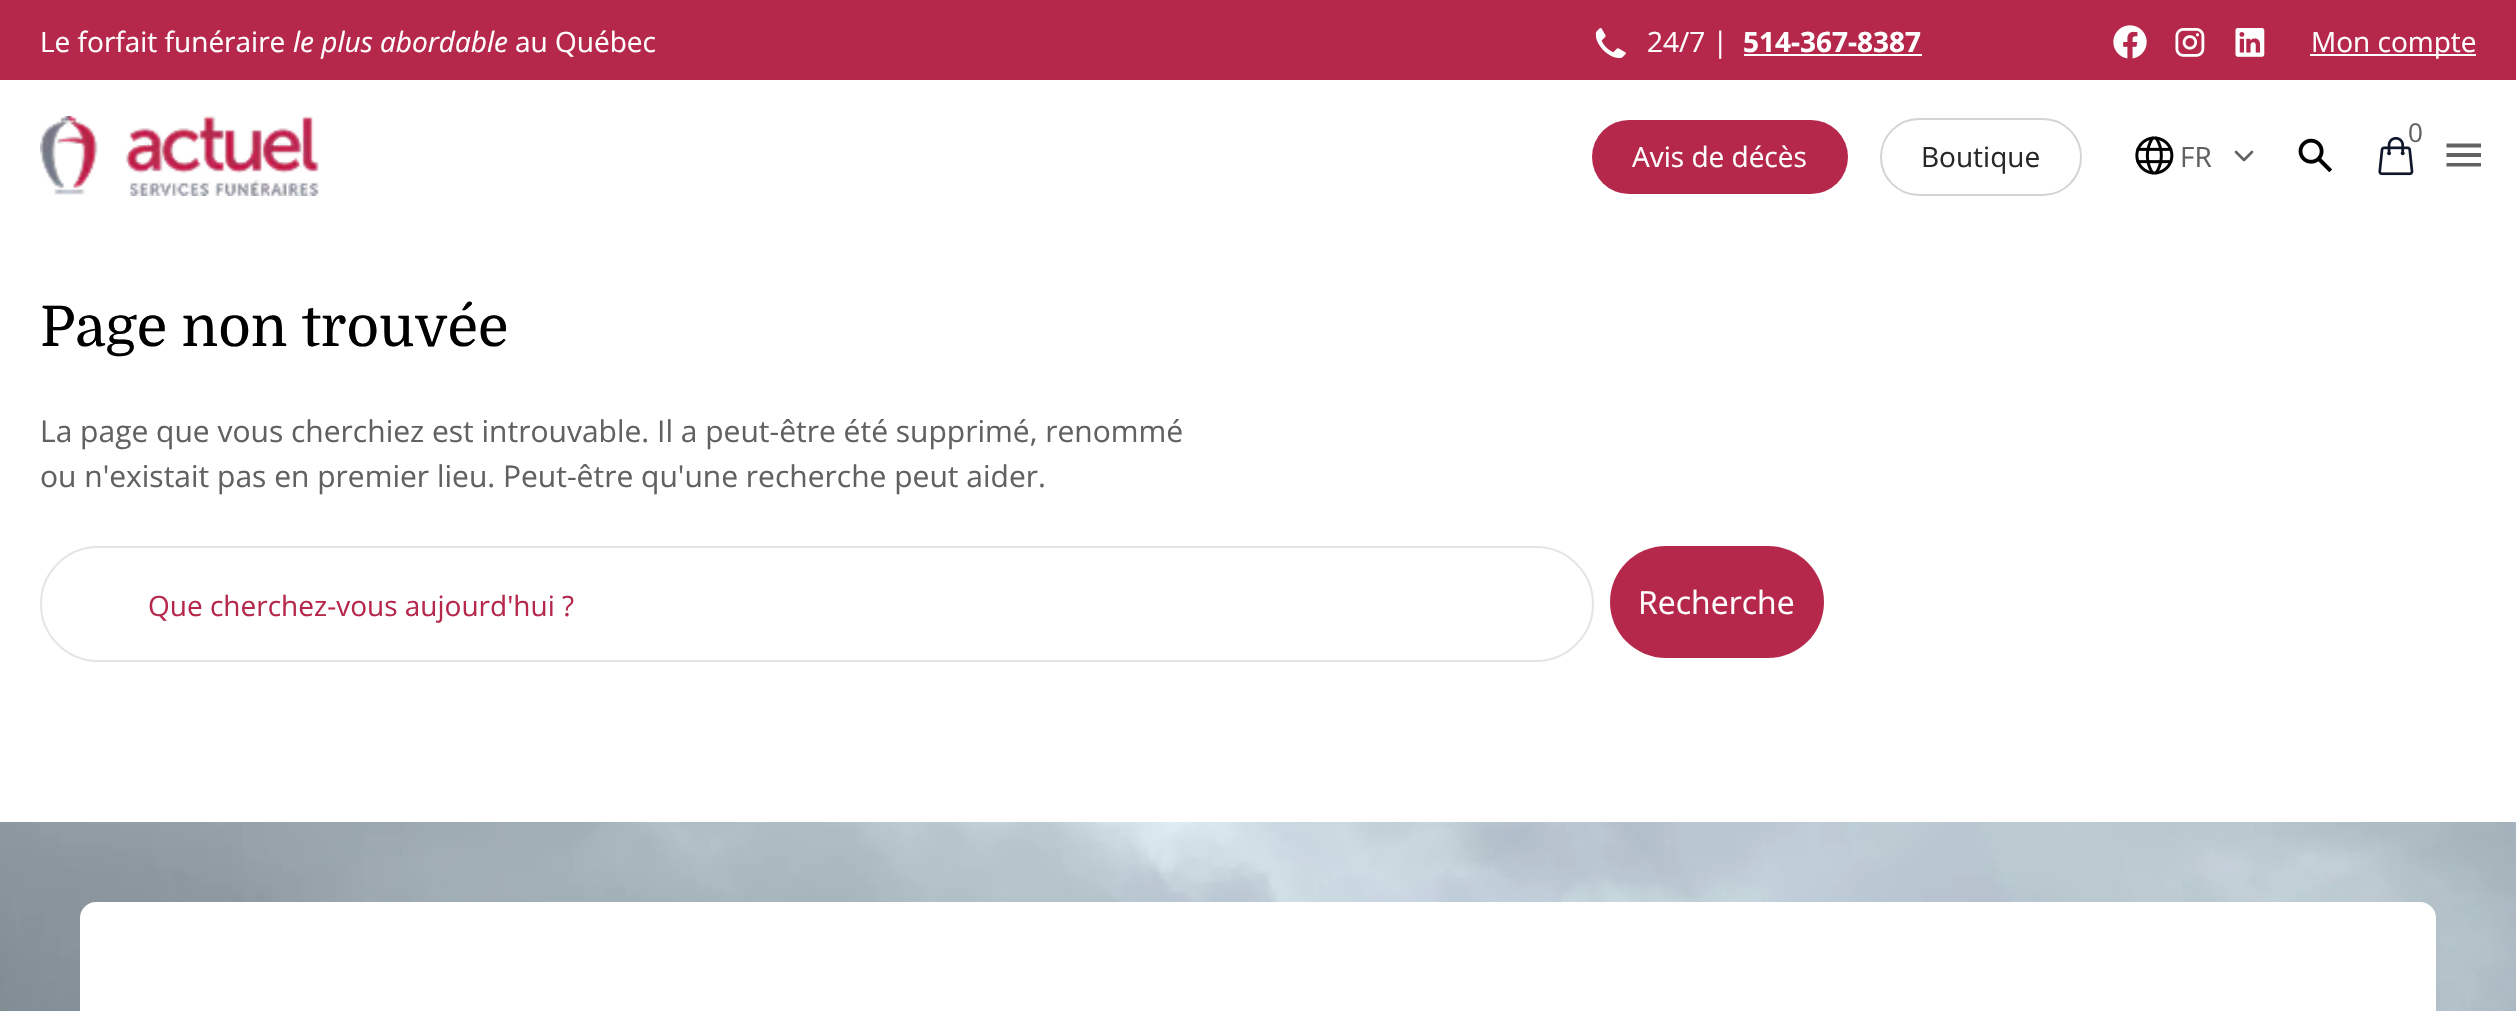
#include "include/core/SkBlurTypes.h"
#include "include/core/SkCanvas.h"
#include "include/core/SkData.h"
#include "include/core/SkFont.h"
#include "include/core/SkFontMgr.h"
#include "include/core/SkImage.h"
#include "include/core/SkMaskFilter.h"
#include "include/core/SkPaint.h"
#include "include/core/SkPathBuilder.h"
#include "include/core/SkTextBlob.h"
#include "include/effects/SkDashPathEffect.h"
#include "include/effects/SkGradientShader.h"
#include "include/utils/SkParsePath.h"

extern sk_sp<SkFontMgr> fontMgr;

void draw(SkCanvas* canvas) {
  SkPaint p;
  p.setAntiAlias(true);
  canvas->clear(SK_ColorWHITE);
  p.setColor(SkColorSetRGB(182, 40, 75));
  canvas->drawRect(SkRect::MakeLTRB(0, 0, 2516, 80), p);
  canvas->drawImageRect(SkImages::DeferredFromEncodedData(SkData::MakeFromFileName("images/1.png")), SkRect::MakeLTRB(1595, 28, 1626, 58), SkSamplingOptions());
  p.setColor(SK_ColorWHITE);
  canvas->drawRect(SkRect::MakeLTRB(1744, 54, 1922, 56), p);
  canvas->drawImageRect(SkImages::DeferredFromEncodedData(SkData::MakeFromFileName("images/2.png")), SkRect::MakeLTRB(2113, 25, 2147, 59), SkSamplingOptions());
  canvas->drawImageRect(SkImages::DeferredFromEncodedData(SkData::MakeFromFileName("images/3.png")), SkRect::MakeLTRB(2175, 28, 2205, 57), SkSamplingOptions());
  canvas->drawImageRect(SkImages::DeferredFromEncodedData(SkData::MakeFromFileName("images/4.png")), SkRect::MakeLTRB(2235, 28, 2265, 57), SkSamplingOptions());
  canvas->drawRect(SkRect::MakeLTRB(2310, 54, 2476, 56), p);
  canvas->drawImageRect(SkImages::DeferredFromEncodedData(SkData::MakeFromFileName("images/5.png")), SkRect::MakeLTRB(40, 116, 319, 196), SkSamplingOptions());
  p.setColor(SkColorSetRGB(182, 40, 75));
  canvas->drawRoundRect(SkRect::MakeLTRB(1592, 120, 1848, 194), 37, 37, p);
  p.setStyle(SkPaint::kStroke_Style);
  p.setStrokeWidth(2);
  p.setColor(SkColorSetRGB(212, 212, 212));
  canvas->drawRoundRect(SkRect::MakeLTRB(1881, 119, 2081, 195), 38, 38, p);
  canvas->drawImageRect(SkImages::DeferredFromEncodedData(SkData::MakeFromFileName("images/6.png")), SkRect::MakeLTRB(2378, 136, 2414, 176), SkSamplingOptions());
  canvas->drawImageRect(SkImages::DeferredFromEncodedData(SkData::MakeFromFileName("images/7.png")), SkRect::MakeLTRB(2135, 136, 2174, 175), SkSamplingOptions());
  p.setStrokeWidth(2.6f);
  p.setStrokeCap(SkPaint::kRound_Cap);
  p.setStrokeJoin(SkPaint::kRound_Join);
  p.setColor(SkColorSetRGB(97, 97, 97));
  canvas->drawPath(SkPathBuilder().moveTo(2252, 152).lineTo(2244, 160).lineTo(2236, 152).detach(), p);
  canvas->drawImageRect(SkImages::DeferredFromEncodedData(SkData::MakeFromFileName("images/8.png")), SkRect::MakeLTRB(2298, 138, 2333, 173), SkSamplingOptions());
  p.setStyle(SkPaint::kFill_Style);
  canvas->drawPath(SkPathBuilder(SkPathFillType::kEvenOdd).moveTo(2446.5f, 147.5f).lineTo(2446.5f, 143.5f).lineTo(2481, 143.5f).lineTo(2481, 147.5f).close().moveTo(2446.5f, 157).lineTo(2481, 157).lineTo(2481, 153).lineTo(2446.5f, 153).close().moveTo(2446.5f, 166.5f).lineTo(2481, 166.5f).lineTo(2481, 163).lineTo(2446.5f, 163).close().detach(), p);
  p.setStyle(SkPaint::kStroke_Style);
  p.setStrokeWidth(2);
  p.setStrokeCap(SkPaint::kButt_Cap);
  p.setStrokeJoin(SkPaint::kMiter_Join);
  p.setColor(SkColorSetRGB(229, 229, 229));
  canvas->drawRoundRect(SkRect::MakeLTRB(41, 547, 1593, 661), 57, 57, p);
  p.setStyle(SkPaint::kFill_Style);
  p.setColor(SkColorSetRGB(182, 40, 75));
  canvas->drawRoundRect(SkRect::MakeLTRB(1610, 546, 1824, 658), 56, 56, p);
  canvas->drawImageRect(SkImages::DeferredFromEncodedData(SkData::MakeFromFileName("images/9.png")), SkRect::MakeLTRB(0, 822, 2516, 1011), SkSamplingOptions());
  p.setColor(SK_ColorWHITE);
  canvas->drawRoundRect(SkRect::MakeLTRB(80, 902, 2436, 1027), 16, 16, p);
  SkFont font1(fontMgr->matchFamilyStyle("Open Sans", SkFontStyle::Normal()), 28);
  font1.setSubpixel(true);
  canvas->drawString("Le forfait funéraire", 40, 52, font1, p);
  SkFont font2(fontMgr->matchFamilyStyle("Open Sans", SkFontStyle::Italic()), 28);
  font2.setSubpixel(true);
  canvas->drawString("le plus abordable", 293, 52, font2, p);
  canvas->drawString("au Québec", 515, 52, font1, p);
  canvas->drawString("24/7 |", 1647, 52, font1, p);
  SkFont font3(fontMgr->matchFamilyStyle("Open Sans", SkFontStyle::Bold()), 28);
  font3.setSubpixel(true);
  canvas->drawString("514-367-8387", 1743, 52, font3, p);
  canvas->drawString("Mon compte", 2311, 52, font1, p);
  canvas->drawString("Avis de décès", 1632, 167, font1, p);
  p.setColor(SkColorSetRGB(40, 40, 40));
  canvas->drawString("Boutique", 1921, 167, font1, p);
  SkFont font4(fontMgr->matchFamilyStyle("Open Sans", SkFontStyle::Normal()), 26);
  font4.setSubpixel(true);
  p.setColor(SkColorSetRGB(97, 97, 97));
  canvas->drawString("0", 2408, 142, font4, p);
  canvas->drawString("FR", 2180, 167, font1, p);
  SkFont font5(fontMgr->matchFamilyStyle("Domine", SkFontStyle::Normal()), 56);
  font5.setSubpixel(true);
  p.setColor(SK_ColorBLACK);
  canvas->drawString("Page non trouvée", 40, 346, font5, p);
  SkFont font6(fontMgr->matchFamilyStyle("Open Sans", SkFontStyle::Normal()), 30);
  font6.setSubpixel(true);
  p.setColor(SkColorSetRGB(97, 97, 97));
  canvas->drawString("La page que vous cherchiez est introuvable. Il a peut-être été supprimé, renommé", 40, 442, font6, p);
  canvas->drawString("ou n'existait pas en premier lieu. Peut-être qu'une recherche peut aider.", 40, 487, font6, p);
  p.setColor(SkColorSetRGB(182, 40, 75));
  canvas->drawString("Que cherchez-vous aujourd'hui ?", 148, 616, font1, p);
  SkFont font7(fontMgr->matchFamilyStyle("Open Sans", SkFontStyle::Normal()), 32);
  font7.setSubpixel(true);
  p.setColor(SK_ColorWHITE);
  canvas->drawString("Recherche", 1638, 614, font7, p);
}
